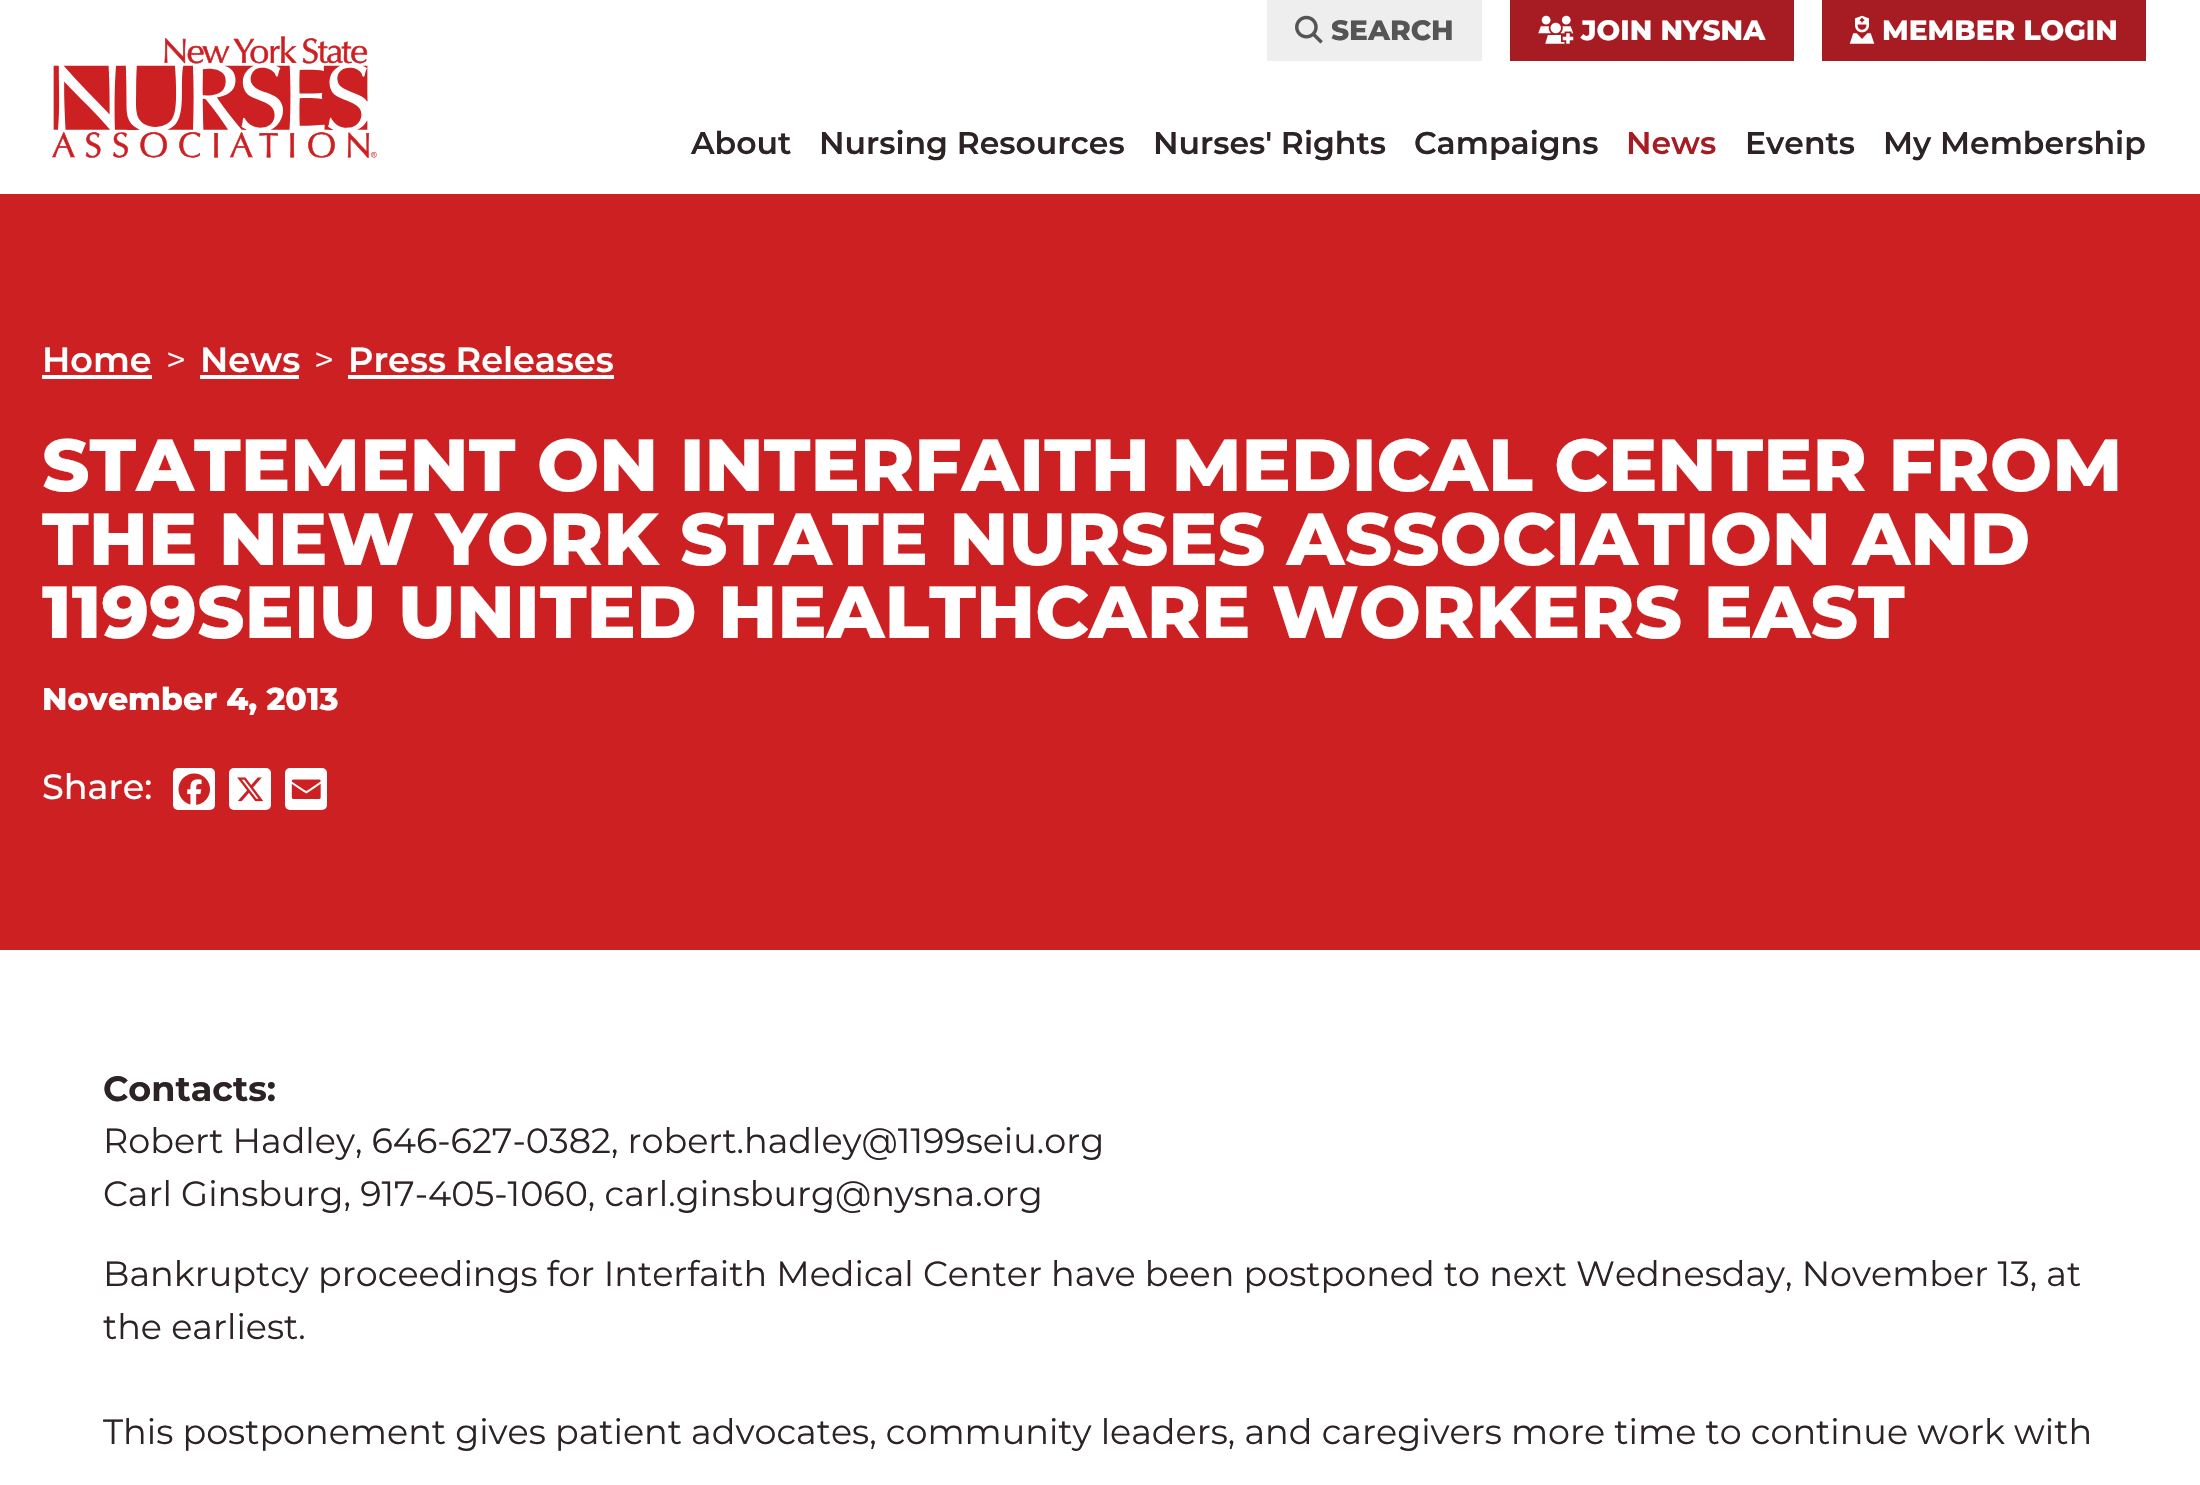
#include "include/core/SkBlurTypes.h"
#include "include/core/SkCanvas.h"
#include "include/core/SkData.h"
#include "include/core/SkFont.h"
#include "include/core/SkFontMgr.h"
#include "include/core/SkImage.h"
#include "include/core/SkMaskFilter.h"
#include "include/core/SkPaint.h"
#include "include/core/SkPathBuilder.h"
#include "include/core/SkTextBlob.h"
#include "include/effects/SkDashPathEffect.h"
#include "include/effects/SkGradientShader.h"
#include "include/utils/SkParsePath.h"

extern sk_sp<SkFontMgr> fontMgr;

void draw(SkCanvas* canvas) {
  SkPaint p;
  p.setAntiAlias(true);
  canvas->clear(SK_ColorWHITE);
  canvas->drawImageRect(SkImages::DeferredFromEncodedData(SkData::MakeFromFileName("images/1.png")), SkRect::MakeLTRB(52, 36, 377, 158), SkSamplingOptions());
  p.setColor(SkColorSetRGB(238, 238, 238));
  canvas->drawRect(SkRect::MakeLTRB(1267, 0, 1482, 61), p);
  canvas->drawImageRect(SkImages::DeferredFromEncodedData(SkData::MakeFromFileName("images/2.png")), SkRect::MakeLTRB(1295, 15, 1323, 44), SkSamplingOptions());
  p.setColor(SkColorSetRGB(167, 28, 34));
  canvas->drawRect(SkRect::MakeLTRB(1510, 0, 1794, 61), p);
  canvas->drawImageRect(SkImages::DeferredFromEncodedData(SkData::MakeFromFileName("images/3.png")), SkRect::MakeLTRB(1538, 15, 1574, 44), SkSamplingOptions());
  canvas->drawRect(SkRect::MakeLTRB(1822, 0, 2146, 61), p);
  canvas->drawImageRect(SkImages::DeferredFromEncodedData(SkData::MakeFromFileName("images/4.png")), SkRect::MakeLTRB(1849, 15, 1875, 44), SkSamplingOptions());
  p.setColor(SkColorSetRGB(204, 32, 35));
  canvas->drawRect(SkRect::MakeLTRB(0, 194, 2200, 950), p);
  p.setColor(SK_ColorWHITE);
  canvas->drawRect(SkRect::MakeLTRB(42, 375, 152, 379), p);
  canvas->drawRect(SkRect::MakeLTRB(200, 375, 299, 379), p);
  canvas->drawRect(SkRect::MakeLTRB(348, 375, 614, 379), p);
  canvas->drawRoundRect(SkRect::MakeLTRB(173, 768, 215, 810), 5, 5, p);
  canvas->drawImageRect(SkImages::DeferredFromEncodedData(SkData::MakeFromFileName("images/5.png")), SkRect::MakeLTRB(178, 773, 210, 805), SkSamplingOptions());
  canvas->drawRoundRect(SkRect::MakeLTRB(229, 768, 271, 810), 5, 5, p);
  canvas->drawImageRect(SkImages::DeferredFromEncodedData(SkData::MakeFromFileName("images/6.png")), SkRect::MakeLTRB(237, 777, 264, 802), SkSamplingOptions());
  canvas->drawRoundRect(SkRect::MakeLTRB(285, 768, 327, 810), 5, 5, p);
  canvas->drawImageRect(SkImages::DeferredFromEncodedData(SkData::MakeFromFileName("images/7.png")), SkRect::MakeLTRB(291, 779, 321, 799), SkSamplingOptions());
  SkFont font1(fontMgr->matchFamilyStyle("Montserrat", SkFontStyle(800, SkFontStyle::kNormal_Width, SkFontStyle::kUpright_Slant)), 28);
  font1.setSubpixel(true);
  p.setColor(SkColorSetRGB(85, 85, 85));
  canvas->drawString("SEARCH", 1331, 40, font1, p);
  p.setColor(SK_ColorWHITE);
  canvas->drawString("JOIN NYSNA", 1581, 40, font1, p);
  canvas->drawString("MEMBER LOGIN", 1882, 40, font1, p);
  SkFont font2(fontMgr->matchFamilyStyle("Montserrat", SkFontStyle(600, SkFontStyle::kNormal_Width, SkFontStyle::kUpright_Slant)), 31.5f);
  font2.setSubpixel(true);
  p.setColor(SkColorSetRGB(45, 35, 37));
  canvas->drawString("About", 691, 154, font2, p);
  canvas->drawString("Nursing Resources", 819, 154, font2, p);
  canvas->drawString("Nurses' Rights", 1153, 154, font2, p);
  canvas->drawString("Campaigns", 1414, 154, font2, p);
  p.setColor(SkColorSetRGB(167, 28, 34));
  canvas->drawString("News", 1626, 154, font2, p);
  p.setColor(SkColorSetRGB(45, 35, 37));
  canvas->drawString("Events", 1745, 154, font2, p);
  canvas->drawString("My Membership", 1883, 154, font2, p);
  SkFont font3(fontMgr->matchFamilyStyle("Montserrat", SkFontStyle(600, SkFontStyle::kNormal_Width, SkFontStyle::kUpright_Slant)), 35);
  font3.setSubpixel(true);
  p.setColor(SK_ColorWHITE);
  canvas->drawString("Home", 42, 372, font3, p);
  SkFont font4(fontMgr->matchFamilyStyle("Montserrat", SkFontStyle::Normal()), 35);
  font4.setSubpixel(true);
  canvas->drawString(">", 166, 372, font4, p);
  canvas->drawString("News", 200, 372, font3, p);
  canvas->drawString(">", 314, 372, font4, p);
  canvas->drawString("Press Releases", 348, 372, font3, p);
  SkFont font5(fontMgr->matchFamilyStyle("Montserrat", SkFontStyle(800, SkFontStyle::kNormal_Width, SkFontStyle::kUpright_Slant)), 73.5f);
  font5.setSubpixel(true);
  canvas->drawString("STATEMENT ON INTERFAITH MEDICAL CENTER FROM", 42, 491, font5, p);
  canvas->drawString("THE NEW YORK STATE NURSES ASSOCIATION AND", 42, 565, font5, p);
  canvas->drawString("1199SEIU UNITED HEALTHCARE WORKERS EAST", 42, 638, font5, p);
  SkFont font6(fontMgr->matchFamilyStyle("Montserrat", SkFontStyle(800, SkFontStyle::kNormal_Width, SkFontStyle::kUpright_Slant)), 31.5f);
  font6.setSubpixel(true);
  canvas->drawString("November 4, 2013", 42, 710, font6, p);
  SkFont font7(fontMgr->matchFamilyStyle("Montserrat", SkFontStyle(500, SkFontStyle::kNormal_Width, SkFontStyle::kUpright_Slant)), 35);
  font7.setSubpixel(true);
  canvas->drawString("Share:", 42, 799, font7, p);
  SkFont font8(fontMgr->matchFamilyStyle("Montserrat", SkFontStyle::Bold()), 35);
  font8.setSubpixel(true);
  p.setColor(SkColorSetRGB(45, 35, 37));
  canvas->drawString("Contacts:", 103, 1101, font8, p);
  canvas->drawString("Robert Hadley, 646-627-0382, robert.hadley@1199seiu.org", 103, 1153, font4, p);
  canvas->drawString("Carl Ginsburg, 917-405-1060, carl.ginsburg@nysna.org", 103, 1206, font4, p);
  canvas->drawString("Bankruptcy proceedings for Interfaith Medical Center have been postponed to next Wednesday, November 13, at", 103, 1286, font4, p);
  canvas->drawString("the earliest.", 103, 1339, font4, p);
  canvas->drawString("This postponement gives patient advocates, community leaders, and caregivers more time to continue work with", 103, 1444, font4, p);
}
